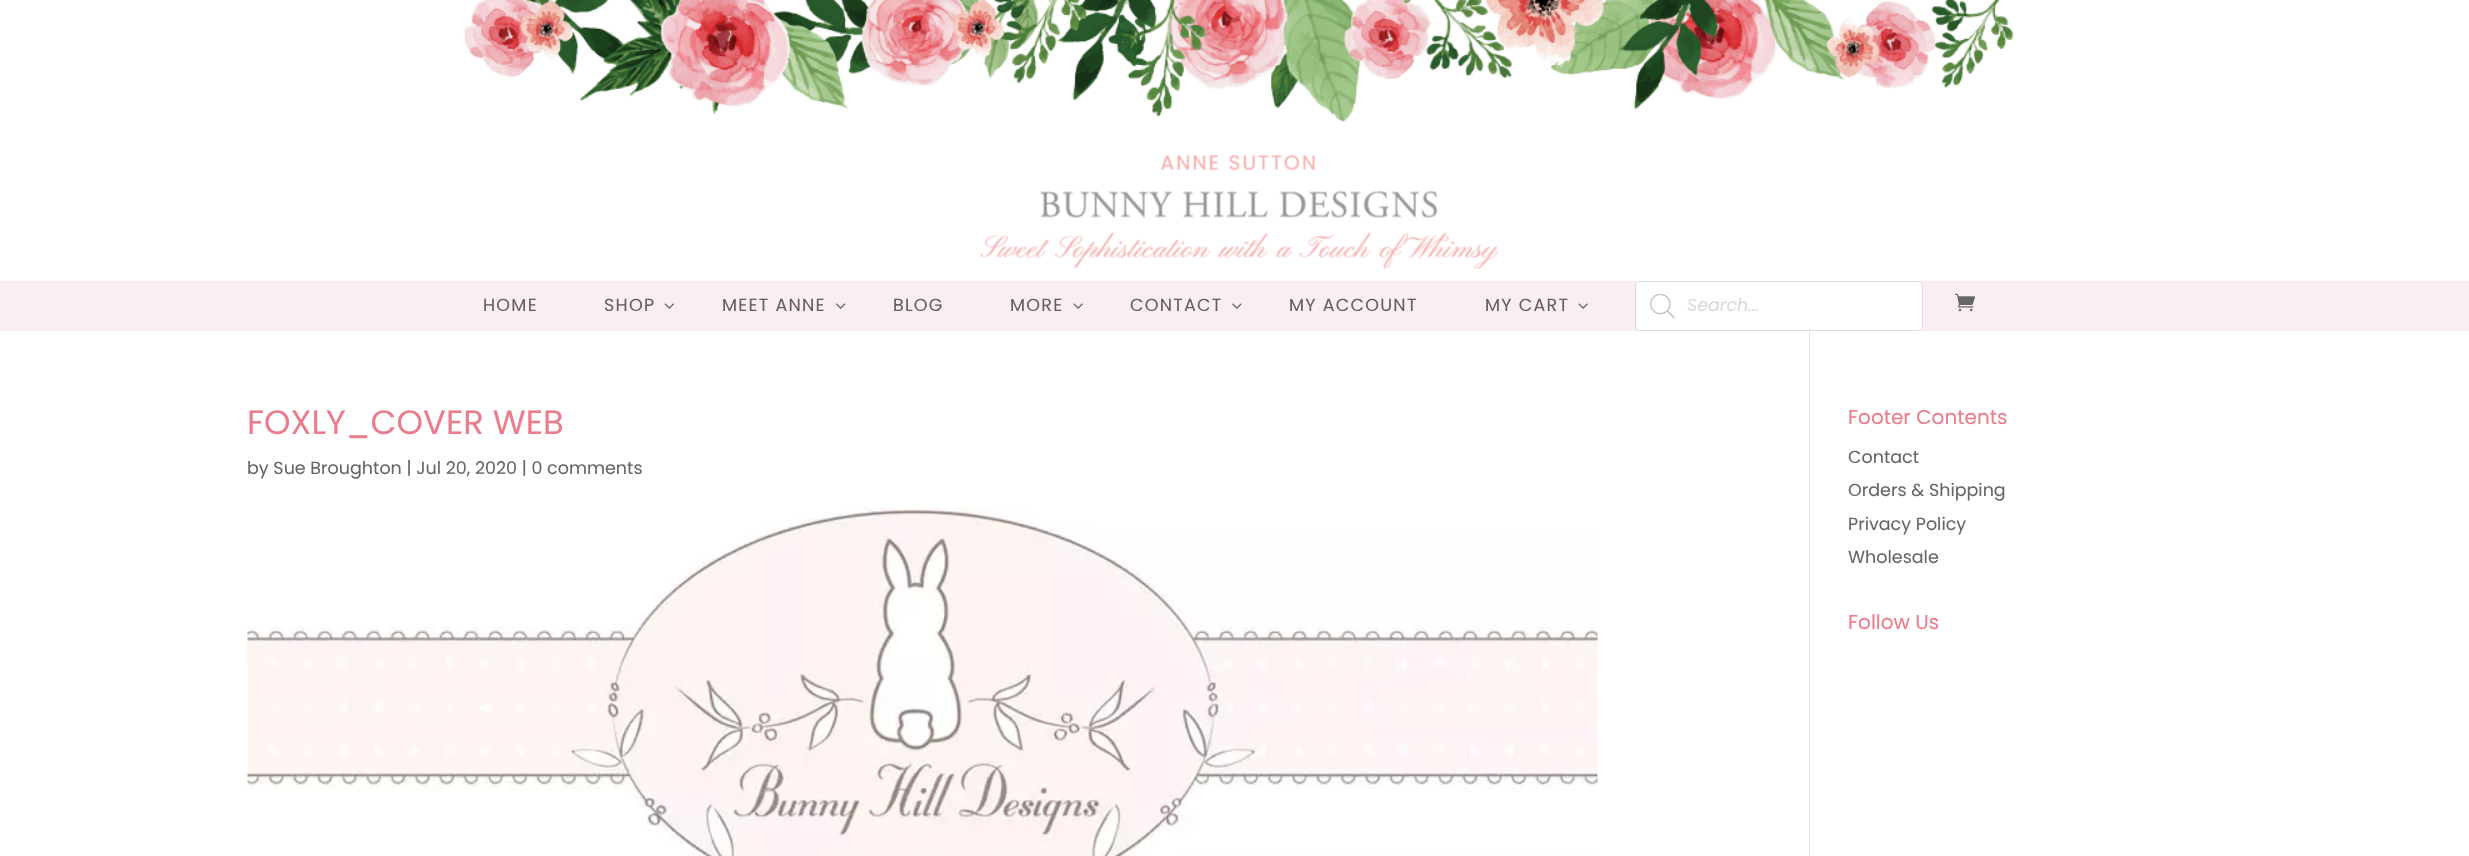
#include "include/core/SkBlurTypes.h"
#include "include/core/SkCanvas.h"
#include "include/core/SkData.h"
#include "include/core/SkFont.h"
#include "include/core/SkFontMgr.h"
#include "include/core/SkImage.h"
#include "include/core/SkMaskFilter.h"
#include "include/core/SkPaint.h"
#include "include/core/SkPathBuilder.h"
#include "include/core/SkTextBlob.h"
#include "include/effects/SkDashPathEffect.h"
#include "include/effects/SkGradientShader.h"
#include "include/utils/SkParsePath.h"

extern sk_sp<SkFontMgr> fontMgr;

void draw(SkCanvas* canvas) {
  SkPaint p;
  p.setAntiAlias(true);
  auto spacedText = [&](const char* s, float x, float y, const SkFont& font, const SkPaint& ink, float letter, float word) {
    std::vector<SkGlyphID> glyphs(font.countText(s, strlen(s), SkTextEncoding::kUTF8));
    std::vector<float> xs(glyphs.size());
    font.textToGlyphs(s, strlen(s), SkTextEncoding::kUTF8, glyphs);
    font.getXPos(glyphs, xs, x);
    float extra = 0;
    for (size_t i = 0; i < glyphs.size(); i++) {
      xs[i] += extra;
      extra += letter + word * (glyphs[i] == font.unicharToGlyph(' '));
    }
    canvas->drawTextBlob(SkTextBlob::MakeFromPosHGlyphs(glyphs, xs, y, font), 0, 0, ink);
  };
  canvas->clear(SK_ColorWHITE);
  canvas->drawImageRect(SkImages::DeferredFromEncodedData(SkData::MakeFromFileName("images/1.png")), SkRect::MakeLTRB(463, 0, 2014, 122), SkSamplingOptions());
  canvas->drawImageRect(SkImages::DeferredFromEncodedData(SkData::MakeFromFileName("images/2.png")), SkRect::MakeLTRB(979, 154, 1499, 269), SkSamplingOptions());
  p.setColor(SkColorSetRGB(249, 238, 240));
  canvas->drawRect(SkRect::MakeLTRB(0, 281, 2469, 331), p);
  canvas->drawImageRect(SkImages::DeferredFromEncodedData(SkData::MakeFromFileName("images/3.png")), SkRect::MakeLTRB(664, 303, 674, 309), SkSamplingOptions());
  canvas->drawImageRect(SkImages::DeferredFromEncodedData(SkData::MakeFromFileName("images/4.png")), SkRect::MakeLTRB(836, 303, 846, 309), SkSamplingOptions());
  canvas->drawImageRect(SkImages::DeferredFromEncodedData(SkData::MakeFromFileName("images/5.png")), SkRect::MakeLTRB(1073, 303, 1083, 309), SkSamplingOptions());
  canvas->drawImageRect(SkImages::DeferredFromEncodedData(SkData::MakeFromFileName("images/6.png")), SkRect::MakeLTRB(1232, 303, 1242, 309), SkSamplingOptions());
  canvas->drawImageRect(SkImages::DeferredFromEncodedData(SkData::MakeFromFileName("images/5.png")), SkRect::MakeLTRB(1578, 303, 1588, 309), SkSamplingOptions());
  p.setColor(SK_ColorWHITE);
  canvas->drawRoundRect(SkRect::MakeLTRB(1635.5f, 281.5f, 1922.5f, 330.5f), 3.5f, 3.5f, p);
  p.setStyle(SkPaint::kStroke_Style);
  p.setStrokeWidth(1);
  p.setColor(SkColorSetRGB(221, 221, 221));
  canvas->drawRoundRect(SkRect::MakeLTRB(1635.5f, 281.5f, 1922.5f, 330.5f), 3.5f, 3.5f, p);
  canvas->drawImageRect(SkImages::DeferredFromEncodedData(SkData::MakeFromFileName("images/7.png")), SkRect::MakeLTRB(1650, 294, 1675, 319), SkSamplingOptions());
  canvas->drawImageRect(SkImages::DeferredFromEncodedData(SkData::MakeFromFileName("images/8.png")), SkRect::MakeLTRB(1955, 293, 1975, 312), SkSamplingOptions());
  p.setStyle(SkPaint::kFill_Style);
  p.setColor(SkColorSetRGB(226, 226, 226));
  canvas->drawRect(SkRect::MakeLTRB(1809, 331, 1810, 856), p);
  canvas->drawImageRect(SkImages::DeferredFromEncodedData(SkData::MakeFromFileName("images/9.png")), SkRect::MakeLTRB(247, 507, 1598, 856), SkSamplingOptions());
  SkFont font1(fontMgr->matchFamilyStyle("Poppins", SkFontStyle::Normal()), 17.5f);
  font1.setSubpixel(true);
  p.setColor(SkColorSetRGB(100, 95, 96));
  spacedText("HOME", 483, 311, font1, p, 1.25f, 0);
  spacedText("SHOP", 604, 311, font1, p, 1.25f, 0);
  spacedText("MEET ANNE", 722, 311, font1, p, 1.25f, 0);
  spacedText("BLOG", 893, 311, font1, p, 1.25f, 0);
  spacedText("MORE", 1010, 311, font1, p, 1.25f, 0);
  spacedText("CONTACT", 1130, 311, font1, p, 1.25f, 0);
  spacedText("MY ACCOUNT", 1289, 311, font1, p, 1.25f, 0);
  spacedText("MY CART", 1485, 311, font1, p, 1.25f, 0);
  SkFont font2(fontMgr->matchFamilyStyle("Poppins", SkFontStyle::Italic()), 17.5f);
  font2.setSubpixel(true);
  p.setColor(SkColorSetRGB(218, 218, 218));
  canvas->drawString("Search...", 1687, 311, font2, p);
  SkFont font3(fontMgr->matchFamilyStyle("Poppins", SkFontStyle::Normal()), 33.75f);
  font3.setSubpixel(true);
  p.setColor(SkColorSetRGB(234, 124, 140));
  canvas->drawString("FOXLY_COVER WEB", 247, 434, font3, p);
  p.setColor(SkColorSetRGB(102, 102, 102));
  canvas->drawString("by Sue Broughton | Jul 20, 2020 | 0 comments", 247, 474, font1, p);
  SkFont font4(fontMgr->matchFamilyStyle("Poppins", SkFontStyle::Normal()), 20);
  font4.setSubpixel(true);
  p.setColor(SkColorSetRGB(234, 124, 140));
  canvas->drawString("Footer Contents", 1848, 424, font4, p);
  p.setColor(SkColorSetRGB(102, 102, 102));
  canvas->drawString("Contact", 1848, 463, font1, p);
  canvas->drawString("Orders & Shipping", 1848, 496, font1, p);
  canvas->drawString("Privacy Policy", 1848, 530, font1, p);
  canvas->drawString("Wholesale", 1848, 563, font1, p);
  p.setColor(SkColorSetRGB(234, 124, 140));
  canvas->drawString("Follow Us", 1848, 629, font4, p);
}
